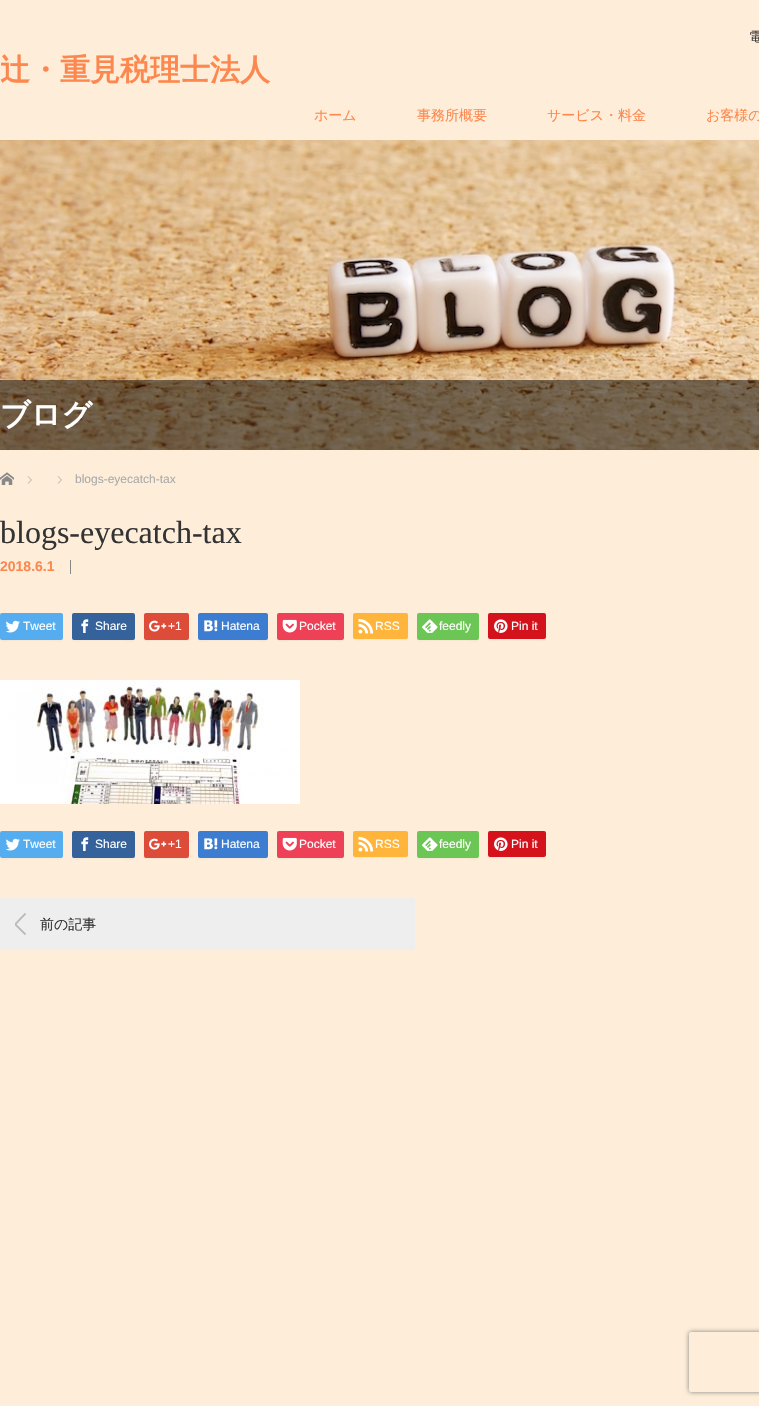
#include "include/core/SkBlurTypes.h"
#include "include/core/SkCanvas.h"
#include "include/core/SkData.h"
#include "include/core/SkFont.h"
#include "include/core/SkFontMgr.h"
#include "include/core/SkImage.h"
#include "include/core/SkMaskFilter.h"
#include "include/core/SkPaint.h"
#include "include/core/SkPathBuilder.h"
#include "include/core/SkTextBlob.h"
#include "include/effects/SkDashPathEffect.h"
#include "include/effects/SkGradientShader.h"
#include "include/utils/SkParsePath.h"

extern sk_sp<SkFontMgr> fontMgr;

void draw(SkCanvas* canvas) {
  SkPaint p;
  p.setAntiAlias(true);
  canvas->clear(SkColorSetRGB(254, 238, 217));
  canvas->drawImageRect(SkImages::DeferredFromEncodedData(SkData::MakeFromFileName("images/1.png")), SkRect::MakeLTRB(0, 140, 759, 450), SkSamplingOptions());
  p.setColor(SkColorSetARGB(128, 0, 0, 0));
  canvas->drawRect(SkRect::MakeLTRB(0, 380, 759, 450), p);
  canvas->drawImageRect(SkImages::DeferredFromEncodedData(SkData::MakeFromFileName("images/2.png")), SkRect::MakeLTRB(0, 472, 14, 485), SkSamplingOptions());
  canvas->drawImageRect(SkImages::DeferredFromEncodedData(SkData::MakeFromFileName("images/3.png")), SkRect::MakeLTRB(27, 476, 32, 484), SkSamplingOptions());
  canvas->drawImageRect(SkImages::DeferredFromEncodedData(SkData::MakeFromFileName("images/3.png")), SkRect::MakeLTRB(57, 476, 62, 484), SkSamplingOptions());
  p.setColor(SkColorSetRGB(136, 136, 136));
  canvas->drawRect(SkRect::MakeLTRB(70, 560, 71, 574), p);
  p.setColor(SkColorSetRGB(246, 231, 210));
  canvas->drawPath(SkPathBuilder().moveTo(0, 638).cubicTo(0, 644, 8, 641, 12, 641).lineTo(51, 641).cubicTo(55, 641, 63, 644, 63, 638).cubicTo(63, 642, 55, 640, 51, 640).lineTo(1, 640).close().detach(), p);
  p.setColor(SkColorSetRGB(85, 172, 238));
  canvas->drawRoundRect(SkRect::MakeLTRB(0, 613, 63, 640), 2, 2, p);
  canvas->drawImageRect(SkImages::DeferredFromEncodedData(SkData::MakeFromFileName("images/4.png")), SkRect::MakeLTRB(5, 620, 20, 633), SkSamplingOptions());
  p.setColor(SkColorSetRGB(246, 231, 210));
  canvas->drawPath(SkPathBuilder().moveTo(72, 638).cubicTo(72, 644, 80, 641, 84, 641).lineTo(123, 641).cubicTo(127, 641, 135, 644, 135, 638).lineTo(134, 640).lineTo(84, 640).cubicTo(80, 640, 72, 642, 72, 638).close().detach(), p);
  p.setColor(SkColorSetRGB(53, 98, 154));
  canvas->drawRoundRect(SkRect::MakeLTRB(72, 613, 135, 640), 2, 2, p);
  canvas->drawImageRect(SkImages::DeferredFromEncodedData(SkData::MakeFromFileName("images/5.png")), SkRect::MakeLTRB(81, 619, 89, 633), SkSamplingOptions());
  p.setColor(SkColorSetRGB(246, 231, 210));
  canvas->drawPath(SkPathBuilder().moveTo(144, 638).cubicTo(144, 643, 149, 641, 153, 641).lineTo(180, 641).cubicTo(184, 641, 189, 643, 189, 638).cubicTo(189, 639, 188, 640, 187, 640).lineTo(146, 640).cubicTo(145, 640, 144, 639, 144, 638).close().detach(), p);
  p.setColor(SkColorSetRGB(221, 75, 57));
  canvas->drawRoundRect(SkRect::MakeLTRB(144, 613, 189, 640), 2, 2, p);
  canvas->drawImageRect(SkImages::DeferredFromEncodedData(SkData::MakeFromFileName("images/6.png")), SkRect::MakeLTRB(149, 620, 167, 632), SkSamplingOptions());
  p.setColor(SkColorSetRGB(246, 231, 210));
  canvas->drawPath(SkPathBuilder().moveTo(198, 638).cubicTo(198, 644, 207, 641, 211, 641).lineTo(255, 641).cubicTo(259, 641, 268, 644, 268, 638).cubicTo(268, 639, 267, 640, 266, 640).lineTo(199, 640).close().detach(), p);
  p.setColor(SkColorSetRGB(60, 125, 209));
  canvas->drawRoundRect(SkRect::MakeLTRB(198, 613, 268, 640), 2, 2, p);
  canvas->drawImageRect(SkImages::DeferredFromEncodedData(SkData::MakeFromFileName("images/7.png")), SkRect::MakeLTRB(204, 620, 218, 632), SkSamplingOptions());
  p.setColor(SkColorSetRGB(246, 231, 210));
  canvas->drawPath(SkPathBuilder().moveTo(277, 638).cubicTo(277, 644, 286, 641, 290, 641).lineTo(332, 641).cubicTo(335, 641, 344, 644, 344, 638).lineTo(343, 640).lineTo(279, 640).lineTo(277, 639).close().detach(), p);
  p.setColor(SkColorSetRGB(238, 64, 86));
  canvas->drawRoundRect(SkRect::MakeLTRB(277, 613, 344, 640), 2, 2, p);
  canvas->drawImageRect(SkImages::DeferredFromEncodedData(SkData::MakeFromFileName("images/8.png")), SkRect::MakeLTRB(282, 619, 297, 633), SkSamplingOptions());
  p.setColor(SkColorSetRGB(246, 231, 210));
  canvas->drawPath(SkPathBuilder().moveTo(353, 637).cubicTo(353, 642, 360, 640, 364, 640).lineTo(398, 640).cubicTo(401, 640, 408, 642, 408, 637).lineTo(407, 639).lineTo(354, 639).close().detach(), p);
  p.setColor(SkColorSetRGB(255, 181, 60));
  canvas->drawRoundRect(SkRect::MakeLTRB(353, 613, 408, 639), 2, 2, p);
  canvas->drawImageRect(SkImages::DeferredFromEncodedData(SkData::MakeFromFileName("images/9.png")), SkRect::MakeLTRB(358, 618, 374, 634), SkSamplingOptions());
  p.setColor(SkColorSetRGB(246, 231, 210));
  canvas->drawPath(SkPathBuilder().moveTo(417, 638).cubicTo(417, 644, 425, 641, 429, 641).lineTo(467, 641).cubicTo(471, 641, 479, 644, 479, 638).lineTo(478, 640).lineTo(429, 640).cubicTo(425, 640, 417, 642, 417, 638).close().detach(), p);
  p.setColor(SkColorSetRGB(108, 198, 85));
  canvas->drawRoundRect(SkRect::MakeLTRB(417, 613, 479, 640), 2, 2, p);
  canvas->drawImageRect(SkImages::DeferredFromEncodedData(SkData::MakeFromFileName("images/10.png")), SkRect::MakeLTRB(422, 619, 438, 633), SkSamplingOptions());
  p.setColor(SkColorSetRGB(246, 231, 210));
  canvas->drawPath(SkPathBuilder().moveTo(488, 637).cubicTo(488, 642, 495, 640, 499, 640).lineTo(535, 640).cubicTo(539, 640, 546, 642, 546, 637).lineTo(545, 639).lineTo(489, 639).close().detach(), p);
  p.setColor(SkColorSetRGB(212, 18, 28));
  canvas->drawRoundRect(SkRect::MakeLTRB(488, 613, 546, 639), 2, 2, p);
  canvas->drawImageRect(SkImages::DeferredFromEncodedData(SkData::MakeFromFileName("images/11.png")), SkRect::MakeLTRB(494, 619, 508, 633), SkSamplingOptions());
  canvas->drawImageRect(SkImages::DeferredFromEncodedData(SkData::MakeFromFileName("images/12.png")), SkRect::MakeLTRB(0, 680, 300, 804), SkSamplingOptions());
  p.setColor(SkColorSetRGB(246, 231, 210));
  canvas->drawPath(SkPathBuilder().moveTo(0, 856).cubicTo(0, 862, 8, 859, 12, 859).lineTo(51, 859).cubicTo(55, 859, 63, 862, 63, 856).cubicTo(63, 860, 55, 858, 51, 858).lineTo(1, 858).close().detach(), p);
  p.setColor(SkColorSetRGB(85, 172, 238));
  canvas->drawRoundRect(SkRect::MakeLTRB(0, 831, 63, 858), 2, 2, p);
  canvas->drawImageRect(SkImages::DeferredFromEncodedData(SkData::MakeFromFileName("images/4.png")), SkRect::MakeLTRB(5, 838, 20, 851), SkSamplingOptions());
  p.setColor(SkColorSetRGB(246, 231, 210));
  canvas->drawPath(SkPathBuilder().moveTo(72, 856).cubicTo(72, 862, 80, 859, 84, 859).lineTo(123, 859).cubicTo(127, 859, 135, 862, 135, 856).lineTo(134, 858).lineTo(84, 858).cubicTo(80, 858, 72, 860, 72, 856).close().detach(), p);
  p.setColor(SkColorSetRGB(53, 98, 154));
  canvas->drawRoundRect(SkRect::MakeLTRB(72, 831, 135, 858), 2, 2, p);
  canvas->drawImageRect(SkImages::DeferredFromEncodedData(SkData::MakeFromFileName("images/5.png")), SkRect::MakeLTRB(81, 837, 89, 851), SkSamplingOptions());
  p.setColor(SkColorSetRGB(246, 231, 210));
  canvas->drawPath(SkPathBuilder().moveTo(144, 856).cubicTo(144, 861, 149, 859, 153, 859).lineTo(180, 859).cubicTo(184, 859, 189, 861, 189, 856).cubicTo(189, 857, 188, 858, 187, 858).lineTo(146, 858).cubicTo(145, 858, 144, 857, 144, 856).close().detach(), p);
  p.setColor(SkColorSetRGB(221, 75, 57));
  canvas->drawRoundRect(SkRect::MakeLTRB(144, 831, 189, 858), 2, 2, p);
  canvas->drawImageRect(SkImages::DeferredFromEncodedData(SkData::MakeFromFileName("images/6.png")), SkRect::MakeLTRB(149, 838, 167, 850), SkSamplingOptions());
  p.setColor(SkColorSetRGB(246, 231, 210));
  canvas->drawPath(SkPathBuilder().moveTo(198, 856).cubicTo(198, 862, 207, 859, 211, 859).lineTo(255, 859).cubicTo(259, 859, 268, 862, 268, 856).cubicTo(268, 857, 267, 858, 266, 858).lineTo(199, 858).close().detach(), p);
  p.setColor(SkColorSetRGB(60, 125, 209));
  canvas->drawRoundRect(SkRect::MakeLTRB(198, 831, 268, 858), 2, 2, p);
  canvas->drawImageRect(SkImages::DeferredFromEncodedData(SkData::MakeFromFileName("images/7.png")), SkRect::MakeLTRB(204, 838, 218, 850), SkSamplingOptions());
  p.setColor(SkColorSetRGB(246, 231, 210));
  canvas->drawPath(SkPathBuilder().moveTo(277, 856).cubicTo(277, 862, 286, 859, 290, 859).lineTo(332, 859).cubicTo(335, 859, 344, 862, 344, 856).lineTo(343, 858).lineTo(279, 858).lineTo(277, 857).close().detach(), p);
  p.setColor(SkColorSetRGB(238, 64, 86));
  canvas->drawRoundRect(SkRect::MakeLTRB(277, 831, 344, 858), 2, 2, p);
  canvas->drawImageRect(SkImages::DeferredFromEncodedData(SkData::MakeFromFileName("images/8.png")), SkRect::MakeLTRB(282, 837, 297, 851), SkSamplingOptions());
  p.setColor(SkColorSetRGB(246, 231, 210));
  canvas->drawPath(SkPathBuilder().moveTo(353, 855).cubicTo(353, 860, 360, 858, 364, 858).lineTo(398, 858).cubicTo(401, 858, 408, 860, 408, 855).lineTo(407, 857).lineTo(354, 857).close().detach(), p);
  p.setColor(SkColorSetRGB(255, 181, 60));
  canvas->drawRoundRect(SkRect::MakeLTRB(353, 831, 408, 857), 2, 2, p);
  canvas->drawImageRect(SkImages::DeferredFromEncodedData(SkData::MakeFromFileName("images/9.png")), SkRect::MakeLTRB(358, 836, 374, 852), SkSamplingOptions());
  p.setColor(SkColorSetRGB(246, 231, 210));
  canvas->drawPath(SkPathBuilder().moveTo(417, 856).cubicTo(417, 862, 425, 859, 429, 859).lineTo(467, 859).cubicTo(471, 859, 479, 862, 479, 856).lineTo(478, 858).lineTo(429, 858).cubicTo(425, 858, 417, 860, 417, 856).close().detach(), p);
  p.setColor(SkColorSetRGB(108, 198, 85));
  canvas->drawRoundRect(SkRect::MakeLTRB(417, 831, 479, 858), 2, 2, p);
  canvas->drawImageRect(SkImages::DeferredFromEncodedData(SkData::MakeFromFileName("images/10.png")), SkRect::MakeLTRB(422, 837, 438, 851), SkSamplingOptions());
  p.setColor(SkColorSetRGB(246, 231, 210));
  canvas->drawPath(SkPathBuilder().moveTo(488, 855).cubicTo(488, 860, 495, 858, 499, 858).lineTo(535, 858).cubicTo(539, 858, 546, 860, 546, 855).lineTo(545, 857).lineTo(489, 857).close().detach(), p);
  p.setColor(SkColorSetRGB(212, 18, 28));
  canvas->drawRoundRect(SkRect::MakeLTRB(488, 831, 546, 857), 2, 2, p);
  canvas->drawImageRect(SkImages::DeferredFromEncodedData(SkData::MakeFromFileName("images/11.png")), SkRect::MakeLTRB(494, 837, 508, 851), SkSamplingOptions());
  p.setColor(SkColorSetRGB(238, 238, 238));
  canvas->drawRect(SkRect::MakeLTRB(0, 898, 415, 950), p);
  canvas->drawImageRect(SkImages::DeferredFromEncodedData(SkData::MakeFromFileName("images/13.png")), SkRect::MakeLTRB(15, 913, 26, 935), SkSamplingOptions());
  canvas->save();
  canvas->clipPath(SkPathBuilder(SkPathFillType::kEvenOdd).moveTo(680, 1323).lineTo(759, 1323).lineTo(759, 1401).lineTo(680, 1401).close().moveTo(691, 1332).lineTo(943, 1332).cubicTo(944, 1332, 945, 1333, 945, 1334).lineTo(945, 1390).cubicTo(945, 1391, 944, 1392, 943, 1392).lineTo(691, 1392).cubicTo(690, 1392, 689, 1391, 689, 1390).lineTo(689, 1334).cubicTo(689, 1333, 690, 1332, 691, 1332).close().detach(), true);
  p.setColor(SkColorSetRGB(128, 128, 128));
  p.setMaskFilter(SkMaskFilter::MakeBlur(kNormal_SkBlurStyle, 2.5f));
  canvas->drawRoundRect(SkRect::MakeLTRB(689, 1332, 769, 1392), 2, 2, p);
  p.setMaskFilter(nullptr);
  canvas->restore();
  SkFont font1(fontMgr->matchFamilyStyle("WenQuanYi Zen Hei", SkFontStyle(500, SkFontStyle::kNormal_Width, SkFontStyle::kUpright_Slant)), 13);
  font1.setSubpixel(true);
  p.setColor(SkColorSetRGB(51, 51, 51));
  canvas->drawString("電", 749, 41, font1, p);
  SkFont font2(fontMgr->matchFamilyStyle("WenQuanYi Zen Hei", SkFontStyle::Bold()), 30);
  font2.setSubpixel(true);
  p.setColor(SkColorSetRGB(253, 136, 79));
  canvas->drawString("辻・重見税理士法人", 0, 80, font2, p);
  SkFont font3(fontMgr->matchFamilyStyle("WenQuanYi Zen Hei", SkFontStyle(500, SkFontStyle::kNormal_Width, SkFontStyle::kUpright_Slant)), 14);
  font3.setSubpixel(true);
  canvas->drawString("ホーム", 314, 120, font3, p);
  canvas->drawString("事務所概要", 417, 120, font3, p);
  canvas->drawString("サービス・料金", 547, 120, font3, p);
  canvas->drawString("お客様の", 706, 120, font3, p);
  p.setColor(SK_ColorWHITE);
  canvas->drawString("ブログ", 0, 425, font2, p);
  SkFont font4(fontMgr->matchFamilyStyle("Liberation Sans", SkFontStyle::Normal()), 12);
  font4.setSubpixel(true);
  p.setColor(SkColorSetRGB(170, 170, 170));
  canvas->drawString("blogs-eyecatch-tax", 75, 483, font4, p);
  SkFont font5(fontMgr->matchFamilyStyle("Liberation Serif", SkFontStyle::Normal()), 32);
  font5.setSubpixel(true);
  p.setColor(SkColorSetRGB(51, 51, 51));
  canvas->drawString("blogs-eyecatch-tax", 0, 543, font5, p);
  SkFont font6(fontMgr->matchFamilyStyle("Liberation Sans", SkFontStyle::Bold()), 14);
  font6.setSubpixel(true);
  p.setColor(SkColorSetRGB(253, 136, 79));
  canvas->drawString("2018.6.1", 0, 571, font6, p);
  p.setColor(SK_ColorWHITE);
  canvas->drawString("Tweet", 23, 630, font4, p);
  canvas->drawString("Share", 95, 630, font4, p);
  canvas->drawString("+1", 168, 630, font4, p);
  canvas->drawString("Hatena", 221, 630, font4, p);
  canvas->drawString("Pocket", 299, 630, font4, p);
  canvas->drawString("RSS", 375, 630, font4, p);
  canvas->drawString("feedly", 439, 630, font4, p);
  canvas->drawString("Pin it", 511, 630, font4, p);
  canvas->drawString("Tweet", 23, 848, font4, p);
  canvas->drawString("Share", 95, 848, font4, p);
  canvas->drawString("+1", 168, 848, font4, p);
  canvas->drawString("Hatena", 221, 848, font4, p);
  canvas->drawString("Pocket", 299, 848, font4, p);
  canvas->drawString("RSS", 375, 848, font4, p);
  canvas->drawString("feedly", 439, 848, font4, p);
  canvas->drawString("Pin it", 511, 848, font4, p);
  p.setColor(SkColorSetRGB(51, 51, 51));
  canvas->drawString("前の記事", 40, 929, font3, p);
}
